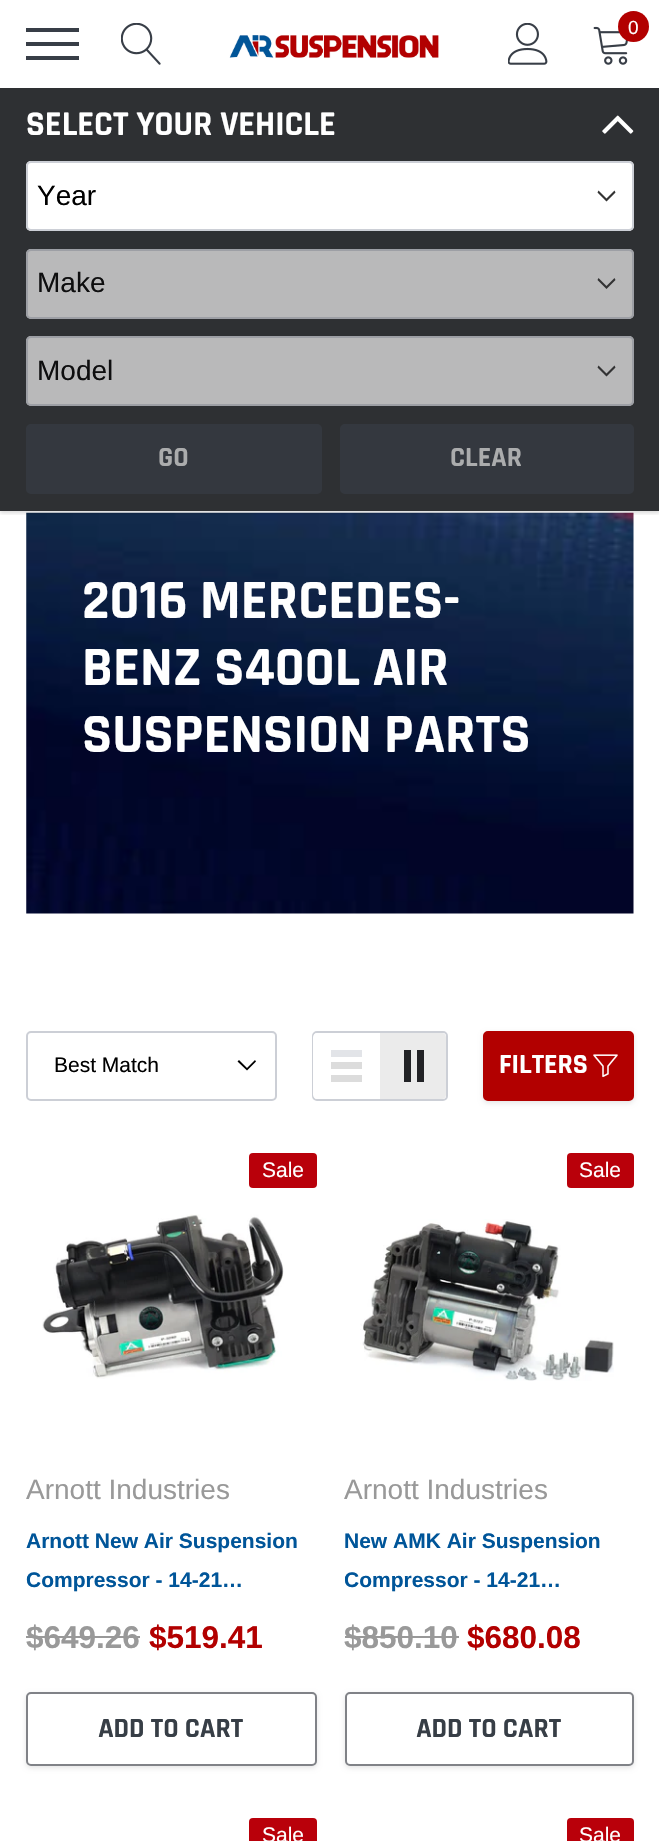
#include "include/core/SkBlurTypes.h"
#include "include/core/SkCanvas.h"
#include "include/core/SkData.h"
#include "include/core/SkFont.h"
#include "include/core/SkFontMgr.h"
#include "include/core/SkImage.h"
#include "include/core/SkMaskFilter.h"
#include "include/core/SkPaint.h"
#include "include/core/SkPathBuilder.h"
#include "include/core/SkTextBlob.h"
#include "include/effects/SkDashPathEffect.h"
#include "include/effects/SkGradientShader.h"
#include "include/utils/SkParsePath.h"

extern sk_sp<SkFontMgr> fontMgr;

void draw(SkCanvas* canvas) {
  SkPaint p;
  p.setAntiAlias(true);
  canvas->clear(SK_ColorWHITE);
  canvas->drawImageRect(SkImages::DeferredFromEncodedData(SkData::MakeFromFileName("images/6.png")), SkRect::MakeLTRB(26, 512, 634, 914), SkSamplingOptions());
  canvas->save();
  canvas->clipRect(SkRect::MakeLTRB(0, 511, 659, 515));
  p.setColor(SkColorSetARGB(38, 0, 0, 0));
  p.setMaskFilter(SkMaskFilter::MakeBlur(kNormal_SkBlurStyle, 2));
  canvas->drawRect(SkRect::MakeLTRB(0, 2, 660, 513), p);
  p.setMaskFilter(nullptr);
  canvas->restore();
  p.setColor(SkColorSetRGB(56, 62, 71));
  canvas->drawRect(SkRect::MakeLTRB(26, 42, 79, 46), p);
  canvas->drawRect(SkRect::MakeLTRB(26, 28, 79, 32), p);
  canvas->drawRect(SkRect::MakeLTRB(26, 56, 79, 60), p);
  canvas->drawImageRect(SkImages::DeferredFromEncodedData(SkData::MakeFromFileName("images/1.png")), SkRect::MakeLTRB(121, 23, 161, 65), SkSamplingOptions());
  canvas->drawImageRect(SkImages::DeferredFromEncodedData(SkData::MakeFromFileName("images/2.png")), SkRect::MakeLTRB(229, 35, 439, 58), SkSamplingOptions());
  canvas->drawImageRect(SkImages::DeferredFromEncodedData(SkData::MakeFromFileName("images/3.png")), SkRect::MakeLTRB(508, 23, 548, 65), SkSamplingOptions());
  canvas->drawImageRect(SkImages::DeferredFromEncodedData(SkData::MakeFromFileName("images/4.png")), SkRect::MakeLTRB(593, 26, 628, 65), SkSamplingOptions());
  p.setColor(SkColorSetRGB(178, 0, 0));
  canvas->drawCircle(633.5f, 26.5f, 15.5f, p);
  p.setColor(SkColorSetRGB(46, 48, 51));
  canvas->drawRect(SkRect::MakeLTRB(0, 88, 659, 511), p);
  canvas->drawImageRect(SkImages::DeferredFromEncodedData(SkData::MakeFromFileName("images/5.png")), SkRect::MakeLTRB(602, 115, 634, 134), SkSamplingOptions());
  p.setColor(SK_ColorWHITE);
  canvas->drawRoundRect(SkRect::MakeLTRB(26, 161, 634, 231), 5, 5, p);
  p.setColor(SkColorSetRGB(51, 51, 51));
  canvas->drawPath(SkPathBuilder(SkPathFillType::kEvenOdd).moveTo(606.5f, 201.5f).lineTo(615.5f, 192.5f).lineTo(614.5f, 190.5f).lineTo(606.5f, 198.5f).lineTo(598.5f, 190.5f).lineTo(597.5f, 192.5f).close().detach(), p);
  p.setStyle(SkPaint::kStroke_Style);
  p.setStrokeWidth(2);
  p.setColor(SkColorSetRGB(204, 207, 214));
  canvas->drawRoundRect(SkRect::MakeLTRB(27, 162, 633, 230), 4, 4, p);
  p.setStyle(SkPaint::kFill_Style);
  p.setColor(SkColorSetRGB(185, 185, 186));
  canvas->drawRoundRect(SkRect::MakeLTRB(26, 249, 634, 319), 5, 5, p);
  p.setColor(SkColorSetRGB(50, 50, 51));
  canvas->drawPath(SkPathBuilder(SkPathFillType::kEvenOdd).moveTo(606.5f, 289).lineTo(615.5f, 280).lineTo(614.5f, 278).lineTo(606.5f, 286).lineTo(598.5f, 278).lineTo(597.5f, 280).close().detach(), p);
  p.setStyle(SkPaint::kStroke_Style);
  p.setColor(SkColorSetRGB(157, 159, 165));
  canvas->drawRoundRect(SkRect::MakeLTRB(27, 250, 633, 318), 4, 4, p);
  p.setStyle(SkPaint::kFill_Style);
  p.setColor(SkColorSetRGB(185, 185, 186));
  canvas->drawRoundRect(SkRect::MakeLTRB(26, 336, 634, 406), 5, 5, p);
  p.setColor(SkColorSetRGB(50, 50, 51));
  canvas->drawPath(SkPathBuilder(SkPathFillType::kEvenOdd).moveTo(606.5f, 376.5f).lineTo(615.5f, 367.5f).lineTo(614.5f, 365.5f).lineTo(606.5f, 373.5f).lineTo(598.5f, 365.5f).lineTo(597.5f, 367.5f).close().detach(), p);
  p.setStyle(SkPaint::kStroke_Style);
  p.setColor(SkColorSetRGB(157, 159, 165));
  canvas->drawRoundRect(SkRect::MakeLTRB(27, 337, 633, 405), 4, 4, p);
  p.setStyle(SkPaint::kFill_Style);
  p.setColor(SkColorSetRGB(52, 56, 63));
  canvas->drawRoundRect(SkRect::MakeLTRB(27, 425, 321, 493), 4, 4, p);
  p.setStyle(SkPaint::kStroke_Style);
  canvas->drawRoundRect(SkRect::MakeLTRB(27, 425, 321, 493), 4, 4, p);
  p.setStyle(SkPaint::kFill_Style);
  canvas->drawRoundRect(SkRect::MakeLTRB(341, 425, 633, 493), 4, 4, p);
  p.setStyle(SkPaint::kStroke_Style);
  canvas->drawRoundRect(SkRect::MakeLTRB(341, 425, 633, 493), 4, 4, p);
  p.setStyle(SkPaint::kFill_Style);
  p.setColor(SK_ColorBLACK);
  canvas->drawPath(SkPathBuilder().moveTo(247, 1070.5f).lineTo(237.5f, 1061.5f).lineTo(239, 1060).lineTo(247, 1068).lineTo(255, 1060).lineTo(256, 1061.5f).close().detach(), p);
  p.setStyle(SkPaint::kStroke_Style);
  p.setColor(SkColorSetRGB(204, 207, 214));
  canvas->drawRoundRect(SkRect::MakeLTRB(27, 1032, 276, 1100), 4, 4, p);
  canvas->drawRoundRect(SkRect::MakeLTRB(313, 1032, 447, 1100), 4, 4, p);
  p.setStyle(SkPaint::kFill_Style);
  p.setColor(SK_ColorWHITE);
  canvas->drawPath(SkPathBuilder().moveTo(317, 1033).lineTo(380, 1033).lineTo(380, 1099).lineTo(317, 1099).cubicTo(315, 1099, 313, 1097, 313, 1095).lineTo(313, 1037).cubicTo(313, 1035, 315, 1033, 317, 1033).close().detach(), p);
  p.setColor(SkColorSetRGB(220, 220, 220));
  canvas->drawRect(SkRect::MakeLTRB(331, 1075, 362, 1082), p);
  canvas->drawRect(SkRect::MakeLTRB(331, 1062, 362, 1069), p);
  p.setColor(SkColorSetRGB(226, 228, 232));
  canvas->drawRect(SkRect::MakeLTRB(331, 1050, 362, 1057), p);
  p.setColor(SkColorSetRGB(235, 235, 235));
  canvas->drawPath(SkPathBuilder().moveTo(380, 1033).lineTo(442, 1033).cubicTo(444, 1033, 446, 1035, 446, 1037).lineTo(446, 1095).cubicTo(446, 1097, 444, 1099, 442, 1099).lineTo(380, 1099).close().detach(), p);
  p.setColor(SkColorSetRGB(34, 35, 38));
  canvas->drawRect(SkRect::MakeLTRB(417, 1050, 424, 1082), p);
  canvas->drawRect(SkRect::MakeLTRB(404, 1050, 411, 1082), p);
  p.setColor(SkColorSetARGB(26, 0, 0, 0));
  p.setMaskFilter(SkMaskFilter::MakeBlur(kNormal_SkBlurStyle, 2.5f));
  canvas->drawRoundRect(SkRect::MakeLTRB(483, 1033, 634, 1103), 5, 5, p);
  p.setMaskFilter(nullptr);
  p.setColor(SkColorSetRGB(178, 0, 0));
  canvas->drawRoundRect(SkRect::MakeLTRB(484, 1032, 633, 1100), 4, 4, p);
  p.setStyle(SkPaint::kStroke_Style);
  canvas->drawRoundRect(SkRect::MakeLTRB(484, 1032, 633, 1100), 4, 4, p);
  canvas->drawImageRect(SkImages::DeferredFromEncodedData(SkData::MakeFromFileName("images/7.png")), SkRect::MakeLTRB(593, 1054, 618, 1078), SkSamplingOptions());
  p.setStyle(SkPaint::kFill_Style);
  p.setColor(SkColorSetRGB(185, 0, 10));
  canvas->drawRoundRect(SkRect::MakeLTRB(249, 1153, 317, 1188), 4, 4, p);
  canvas->drawImageRect(SkImages::DeferredFromEncodedData(SkData::MakeFromFileName("images/8.png")), SkRect::MakeLTRB(42, 1214, 284, 1379), SkSamplingOptions());
  p.setColor(SkColorSetRGB(153, 153, 153));
  canvas->drawRect(SkRect::MakeLTRB(26, 1636, 140, 1638), p);
  p.setColor(SkColorSetARGB(26, 0, 0, 0));
  p.setMaskFilter(SkMaskFilter::MakeBlur(kNormal_SkBlurStyle, 2.5f));
  canvas->drawRoundRect(SkRect::MakeLTRB(26, 1694, 317, 1768), 5, 5, p);
  p.setMaskFilter(nullptr);
  p.setColor(SK_ColorWHITE);
  canvas->drawRoundRect(SkRect::MakeLTRB(27, 1693, 316, 1765), 4, 4, p);
  p.setStyle(SkPaint::kStroke_Style);
  p.setColor(SkColorSetRGB(128, 130, 135));
  canvas->drawRoundRect(SkRect::MakeLTRB(27, 1693, 316, 1765), 4, 4, p);
  p.setStyle(SkPaint::kFill_Style);
  p.setColor(SkColorSetRGB(185, 0, 10));
  canvas->drawRoundRect(SkRect::MakeLTRB(567, 1153, 634, 1188), 4, 4, p);
  canvas->drawImageRect(SkImages::DeferredFromEncodedData(SkData::MakeFromFileName("images/9.png")), SkRect::MakeLTRB(360, 1219, 614, 1381), SkSamplingOptions());
  p.setColor(SkColorSetRGB(153, 153, 153));
  canvas->drawRect(SkRect::MakeLTRB(345, 1636, 459, 1638), p);
  p.setColor(SkColorSetARGB(26, 0, 0, 0));
  p.setMaskFilter(SkMaskFilter::MakeBlur(kNormal_SkBlurStyle, 2.5f));
  canvas->drawRoundRect(SkRect::MakeLTRB(345, 1694, 634, 1768), 5, 5, p);
  p.setMaskFilter(nullptr);
  p.setColor(SK_ColorWHITE);
  canvas->drawRoundRect(SkRect::MakeLTRB(346, 1693, 633, 1765), 4, 4, p);
  p.setStyle(SkPaint::kStroke_Style);
  p.setColor(SkColorSetRGB(128, 130, 135));
  canvas->drawRoundRect(SkRect::MakeLTRB(346, 1693, 633, 1765), 4, 4, p);
  p.setStyle(SkPaint::kFill_Style);
  p.setColor(SkColorSetRGB(185, 0, 10));
  canvas->drawRoundRect(SkRect::MakeLTRB(249, 1818, 317, 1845), 4, 4, p);
  canvas->drawRoundRect(SkRect::MakeLTRB(567, 1818, 634, 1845), 4, 4, p);
  SkFont font1(fontMgr->matchFamilyStyle("Arimo", SkFontStyle::Normal()), 19);
  font1.setSubpixel(true);
  p.setColor(SK_ColorWHITE);
  canvas->drawString("0", 628, 34, font1, p);
  SkFont font2(fontMgr->matchFamilyStyle("Rajdhani", SkFontStyle::Bold()), 35);
  font2.setSubpixel(true);
  canvas->drawString("SELECT YOUR VEHICLE", 26, 135, font2, p);
  SkFont font3(fontMgr->matchFamilyStyle("Arimo", SkFontStyle::Normal()), 28);
  font3.setSubpixel(true);
  p.setColor(SK_ColorBLACK);
  canvas->drawString("Year", 37, 205, font3, p);
  p.setColor(SkColorSetRGB(14, 14, 15));
  canvas->drawString("Make", 37, 292, font3, p);
  canvas->drawString("Model", 37, 380, font3, p);
  SkFont font4(fontMgr->matchFamilyStyle("Rajdhani", SkFontStyle::Bold()), 28);
  font4.setSubpixel(true);
  p.setColor(SkColorSetRGB(171, 172, 173));
  canvas->drawString("GO", 158, 466, font4, p);
  canvas->drawString("CLEAR", 450, 466, font4, p);
  SkFont font5(fontMgr->matchFamilyStyle("Rajdhani", SkFontStyle::Bold()), 56);
  font5.setSubpixel(true);
  p.setColor(SK_ColorWHITE);
  canvas->drawString("2016 MERCEDES-", 82, 618, font5, p);
  canvas->drawString("BENZ S400L AIR", 82, 685, font5, p);
  canvas->drawString("SUSPENSION PARTS", 82, 752, font5, p);
  SkFont font6(fontMgr->matchFamilyStyle("Arimo", SkFontStyle::Normal()), 21);
  font6.setSubpixel(true);
  p.setColor(SK_ColorBLACK);
  canvas->drawString("Best Match", 54, 1072, font6, p);
  p.setColor(SK_ColorWHITE);
  canvas->drawString("FILTERS", 499, 1073, font4, p);
  canvas->drawString("Sale", 262, 1177, font6, p);
  p.setColor(SkColorSetRGB(153, 153, 153));
  canvas->drawString("Arnott Industries", 26, 1499, font3, p);
  SkFont font7(fontMgr->matchFamilyStyle("Arimo", SkFontStyle::Bold()), 21);
  font7.setSubpixel(true);
  p.setColor(SkColorSetRGB(0, 85, 153));
  canvas->drawString("Arnott New Air Suspension", 26, 1548, font7, p);
  canvas->drawString("Compressor - 14-21…", 26, 1587, font7, p);
  SkFont font8(fontMgr->matchFamilyStyle("Arimo", SkFontStyle::Bold()), 31.5f);
  font8.setSubpixel(true);
  p.setColor(SkColorSetRGB(153, 153, 153));
  canvas->drawString("$649.26", 26, 1648, font8, p);
  p.setColor(SkColorSetRGB(178, 0, 0));
  canvas->drawString("$519.41", 149, 1648, font8, p);
  p.setColor(SkColorSetRGB(55, 62, 70));
  canvas->drawString("ADD TO CART", 98, 1737, font4, p);
  p.setColor(SK_ColorWHITE);
  canvas->drawString("Sale", 579, 1177, font6, p);
  p.setColor(SkColorSetRGB(153, 153, 153));
  canvas->drawString("Arnott Industries", 344, 1499, font3, p);
  p.setColor(SkColorSetRGB(0, 85, 153));
  canvas->drawString("New AMK Air Suspension", 344, 1548, font7, p);
  canvas->save();
  canvas->clipRect(SkRect::MakeLTRB(345, 1523, 634, 1600));
  canvas->drawString("Compressor - 14-21…", 344, 1587, font7, p);
  canvas->restore();
  p.setColor(SkColorSetRGB(153, 153, 153));
  canvas->drawString("$850.10", 344, 1648, font8, p);
  p.setColor(SkColorSetRGB(178, 0, 0));
  canvas->drawString("$680.08", 467, 1648, font8, p);
  p.setColor(SkColorSetRGB(55, 62, 70));
  canvas->drawString("ADD TO CART", 416, 1737, font4, p);
  p.setColor(SK_ColorWHITE);
  canvas->drawString("Sale", 262, 1842, font6, p);
  canvas->drawString("Sale", 579, 1842, font6, p);
}
